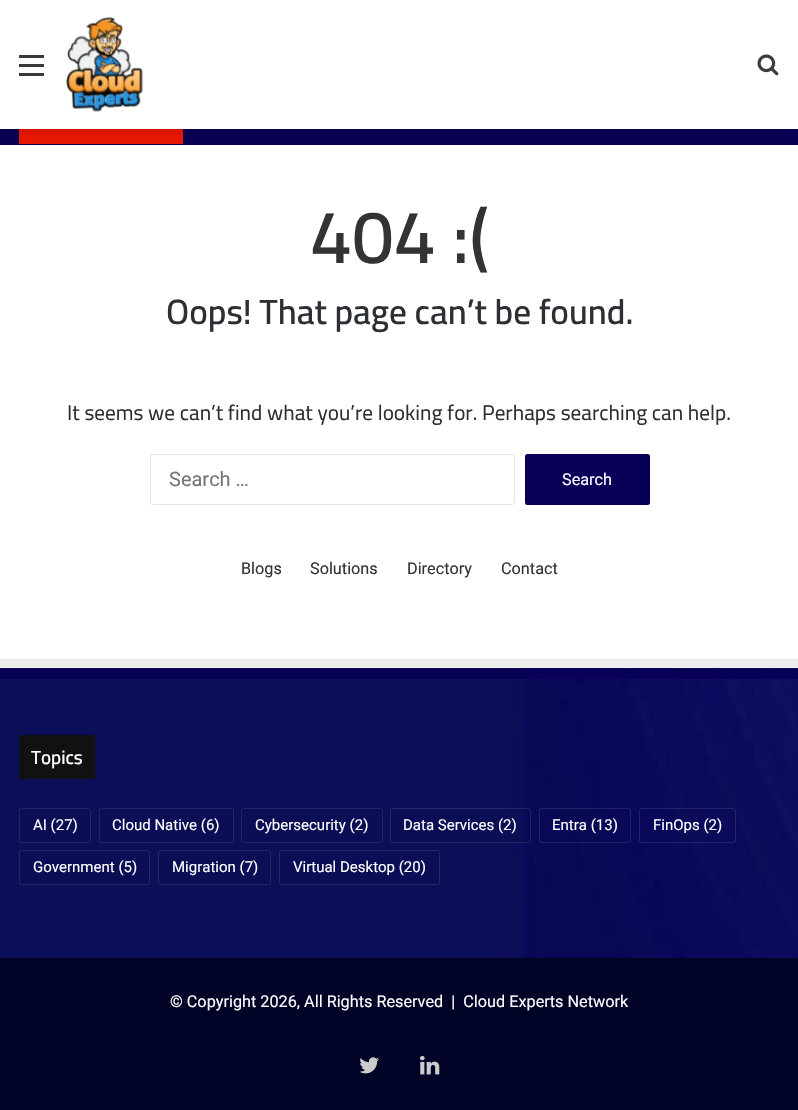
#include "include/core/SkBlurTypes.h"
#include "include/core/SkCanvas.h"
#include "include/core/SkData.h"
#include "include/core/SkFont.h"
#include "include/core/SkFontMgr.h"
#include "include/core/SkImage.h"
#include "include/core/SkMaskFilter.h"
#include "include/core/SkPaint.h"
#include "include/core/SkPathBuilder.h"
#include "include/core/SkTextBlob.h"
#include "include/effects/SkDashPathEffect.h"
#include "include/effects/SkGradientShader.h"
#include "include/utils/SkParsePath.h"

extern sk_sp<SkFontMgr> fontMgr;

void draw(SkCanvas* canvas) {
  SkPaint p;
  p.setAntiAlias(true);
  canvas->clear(SK_ColorWHITE);
  p.setColor(SkColorSetRGB(7, 0, 86));
  canvas->drawRect(SkRect::MakeLTRB(0, 129, 798, 144), p);
  p.setColor(SkColorSetRGB(6, 0, 77));
  canvas->drawRect(SkRect::MakeLTRB(0, 144, 798, 145), p);
  p.setColor(SkColorSetRGB(232, 23, 0));
  canvas->drawRect(SkRect::MakeLTRB(19, 129, 183, 144), p);
  p.setColor(SkColorSetARGB(26, 0, 0, 0));
  p.setMaskFilter(SkMaskFilter::MakeBlur(kNormal_SkBlurStyle, 4.5f));
  canvas->drawRect(SkRect::MakeLTRB(0, 4, 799, 133), p);
  p.setMaskFilter(nullptr);
  p.setColor(SK_ColorWHITE);
  canvas->drawRect(SkRect::MakeLTRB(0, 0, 798, 129), p);
  p.setColor(SkColorSetRGB(55, 57, 62));
  canvas->drawRect(SkRect::MakeLTRB(19, 64, 44, 67), p);
  canvas->drawRect(SkRect::MakeLTRB(19, 55, 44, 58), p);
  canvas->drawRect(SkRect::MakeLTRB(19, 73, 44, 76), p);
  canvas->drawImageRect(SkImages::DeferredFromEncodedData(SkData::MakeFromFileName("images/1.png")), SkRect::MakeLTRB(66, 17, 144, 112), SkSamplingOptions());
  canvas->drawImageRect(SkImages::DeferredFromEncodedData(SkData::MakeFromFileName("images/2.png")), SkRect::MakeLTRB(757, 54, 779, 76), SkSamplingOptions());
  p.setStyle(SkPaint::kStroke_Style);
  p.setStrokeWidth(1);
  p.setColor(SkColorSetRGB(230, 230, 230));
  canvas->drawRoundRect(SkRect::MakeLTRB(150.5f, 454.5f, 514.5f, 504.5f), 2, 2, p);
  p.setStyle(SkPaint::kFill_Style);
  p.setColor(SkColorSetRGB(7, 0, 86));
  canvas->drawRoundRect(SkRect::MakeLTRB(525, 454, 650, 505), 2.5f, 2.5f, p);
  canvas->drawImageRect(SkImages::DeferredFromEncodedData(SkData::MakeFromFileName("images/3.png")), SkRect::MakeLTRB(0, 668, 798, 958), SkSamplingOptions());
  p.setColor(SkColorSetARGB(18, 0, 0, 0));
  canvas->drawPath(SkPathBuilder().moveTo(0, 659).lineTo(0, 669).lineTo(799, 669).lineTo(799, 948).lineTo(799, 659).close().detach(), p);
  p.setColor(SkColorSetRGB(7, 0, 86));
  canvas->drawRect(SkRect::MakeLTRB(0, 669, 798, 679), p);
  p.setColor(SkColorSetRGB(17, 17, 18));
  canvas->drawRect(SkRect::MakeLTRB(19, 735, 95, 779), p);
  p.setColor(SkColorSetRGB(12, 14, 85));
  canvas->drawRoundRect(SkRect::MakeLTRB(19.5f, 808.5f, 90.5f, 842.5f), 2, 2, p);
  p.setStyle(SkPaint::kStroke_Style);
  p.setColor(SkColorSetRGB(36, 38, 102));
  canvas->drawRoundRect(SkRect::MakeLTRB(19.5f, 808.5f, 90.5f, 842.5f), 2, 2, p);
  p.setStyle(SkPaint::kFill_Style);
  p.setColor(SkColorSetRGB(12, 14, 85));
  canvas->drawRoundRect(SkRect::MakeLTRB(99.5f, 808.5f, 233.5f, 842.5f), 2, 2, p);
  p.setStyle(SkPaint::kStroke_Style);
  p.setColor(SkColorSetRGB(36, 38, 102));
  canvas->drawRoundRect(SkRect::MakeLTRB(99.5f, 808.5f, 233.5f, 842.5f), 2, 2, p);
  p.setStyle(SkPaint::kFill_Style);
  p.setColor(SkColorSetRGB(12, 14, 85));
  canvas->drawRoundRect(SkRect::MakeLTRB(241.5f, 808.5f, 382.5f, 842.5f), 2, 2, p);
  p.setStyle(SkPaint::kStroke_Style);
  p.setColor(SkColorSetRGB(36, 38, 102));
  canvas->drawRoundRect(SkRect::MakeLTRB(241.5f, 808.5f, 382.5f, 842.5f), 2, 2, p);
  p.setStyle(SkPaint::kFill_Style);
  p.setColor(SkColorSetARGB(8, 0, 0, 0));
  canvas->drawRect(SkRect::MakeLTRB(390, 808, 529, 843), p);
  p.setStyle(SkPaint::kStroke_Style);
  p.setColor(SkColorSetARGB(26, 255, 255, 255));
  canvas->drawRoundRect(SkRect::MakeLTRB(390.5f, 808.5f, 530.5f, 842.5f), 2, 2, p);
  p.setStyle(SkPaint::kFill_Style);
  p.setColor(SkColorSetARGB(8, 0, 0, 0));
  canvas->drawRect(SkRect::MakeLTRB(561, 808, 631, 843), p);
  p.setStyle(SkPaint::kStroke_Style);
  p.setColor(SkColorSetARGB(26, 255, 255, 255));
  canvas->drawRoundRect(SkRect::MakeLTRB(539.5f, 808.5f, 630.5f, 842.5f), 2, 2, p);
  p.setStyle(SkPaint::kFill_Style);
  p.setColor(SkColorSetARGB(8, 0, 0, 0));
  canvas->drawRect(SkRect::MakeLTRB(639, 808, 736, 843), p);
  p.setStyle(SkPaint::kStroke_Style);
  p.setColor(SkColorSetARGB(26, 255, 255, 255));
  canvas->drawRoundRect(SkRect::MakeLTRB(639.5f, 808.5f, 735.5f, 842.5f), 2, 2, p);
  p.setStyle(SkPaint::kFill_Style);
  p.setColor(SkColorSetRGB(12, 14, 85));
  canvas->drawRoundRect(SkRect::MakeLTRB(19.5f, 850.5f, 149.5f, 884.5f), 2, 2, p);
  p.setStyle(SkPaint::kStroke_Style);
  p.setColor(SkColorSetRGB(36, 38, 102));
  canvas->drawRoundRect(SkRect::MakeLTRB(19.5f, 850.5f, 149.5f, 884.5f), 2, 2, p);
  p.setStyle(SkPaint::kFill_Style);
  p.setColor(SkColorSetRGB(12, 14, 85));
  canvas->drawRoundRect(SkRect::MakeLTRB(158.5f, 850.5f, 270.5f, 884.5f), 2, 2, p);
  p.setStyle(SkPaint::kStroke_Style);
  p.setColor(SkColorSetRGB(36, 38, 102));
  canvas->drawRoundRect(SkRect::MakeLTRB(158.5f, 850.5f, 270.5f, 884.5f), 2, 2, p);
  p.setStyle(SkPaint::kFill_Style);
  p.setColor(SkColorSetRGB(12, 14, 85));
  canvas->drawRoundRect(SkRect::MakeLTRB(279.5f, 850.5f, 439.5f, 884.5f), 2, 2, p);
  p.setStyle(SkPaint::kStroke_Style);
  p.setColor(SkColorSetRGB(36, 38, 102));
  canvas->drawRoundRect(SkRect::MakeLTRB(279.5f, 850.5f, 439.5f, 884.5f), 2, 2, p);
  p.setStyle(SkPaint::kFill_Style);
  p.setColor(SkColorSetRGB(0, 3, 38));
  canvas->drawRect(SkRect::MakeLTRB(0, 958, 798, 1110), p);
  canvas->drawImageRect(SkImages::DeferredFromEncodedData(SkData::MakeFromFileName("images/4.png")), SkRect::MakeLTRB(359, 1057, 379, 1074), SkSamplingOptions());
  canvas->drawImageRect(SkImages::DeferredFromEncodedData(SkData::MakeFromFileName("images/5.png")), SkRect::MakeLTRB(420, 1056, 440, 1075), SkSamplingOptions());
  SkFont font1(fontMgr->matchFamilyStyle("Cairo", SkFontStyle(600, SkFontStyle::kNormal_Width, SkFontStyle::kUpright_Slant)), 75);
  font1.setSubpixel(true);
  p.setColor(SkColorSetRGB(51, 51, 51));
  canvas->drawString("404 :(", 310, 263, font1, p);
  SkFont font2(fontMgr->matchFamilyStyle("Cairo", SkFontStyle(600, SkFontStyle::kNormal_Width, SkFontStyle::kUpright_Slant)), 35);
  font2.setSubpixel(true);
  p.setColor(SkColorSetRGB(44, 47, 52));
  canvas->drawString("Oops! That page can’t be found.", 166, 324, font2, p);
  SkFont font3(fontMgr->matchFamilyStyle("Cairo", SkFontStyle::Normal()), 21.25f);
  font3.setSubpixel(true);
  canvas->drawString("It seems we can’t find what you’re looking for. Perhaps searching can help.", 67, 420, font3, p);
  SkFont font4(fontMgr->matchFamilyStyle("Roboto", SkFontStyle::Normal()), 20);
  font4.setSubpixel(true);
  p.setColor(SkColorSetRGB(117, 117, 117));
  canvas->drawString("Search …", 169, 486, font4, p);
  SkFont font5(fontMgr->matchFamilyStyle("Roboto", SkFontStyle::Normal()), 16.25f);
  font5.setSubpixel(true);
  p.setColor(SK_ColorWHITE);
  canvas->drawString("Search", 562, 485, font5, p);
  p.setColor(SkColorSetRGB(51, 51, 51));
  canvas->drawString("Blogs", 241, 574, font5, p);
  canvas->drawString("Solutions", 310, 574, font5, p);
  canvas->drawString("Directory", 407, 574, font5, p);
  canvas->drawString("Contact", 501, 574, font5, p);
  SkFont font6(fontMgr->matchFamilyStyle("Cairo", SkFontStyle(600, SkFontStyle::kNormal_Width, SkFontStyle::kUpright_Slant)), 19);
  font6.setSubpixel(true);
  p.setColor(SK_ColorWHITE);
  canvas->drawString("Topics", 31, 764, font6, p);
  SkFont font7(fontMgr->matchFamilyStyle("Roboto", SkFontStyle::Normal()), 15);
  font7.setSubpixel(true);
  canvas->drawString("AI (27)", 33, 830, font7, p);
  canvas->drawString("Cloud Native (6)", 112, 830, font7, p);
  canvas->drawString("Cybersecurity (2)", 255, 830, font7, p);
  canvas->drawString("Data Services (2)", 403, 830, font7, p);
  canvas->drawString("Entra (13)", 552, 830, font7, p);
  canvas->drawString("FinOps (2)", 653, 830, font7, p);
  canvas->drawString("Government (5)", 33, 872, font7, p);
  canvas->drawString("Migration (7)", 172, 872, font7, p);
  canvas->drawString("Virtual Desktop (20)", 293, 872, font7, p);
  canvas->drawString("© Copyright 2026, All Rights Reserved  |  Cloud Experts Network", 170, 1007, font5, p);
}
